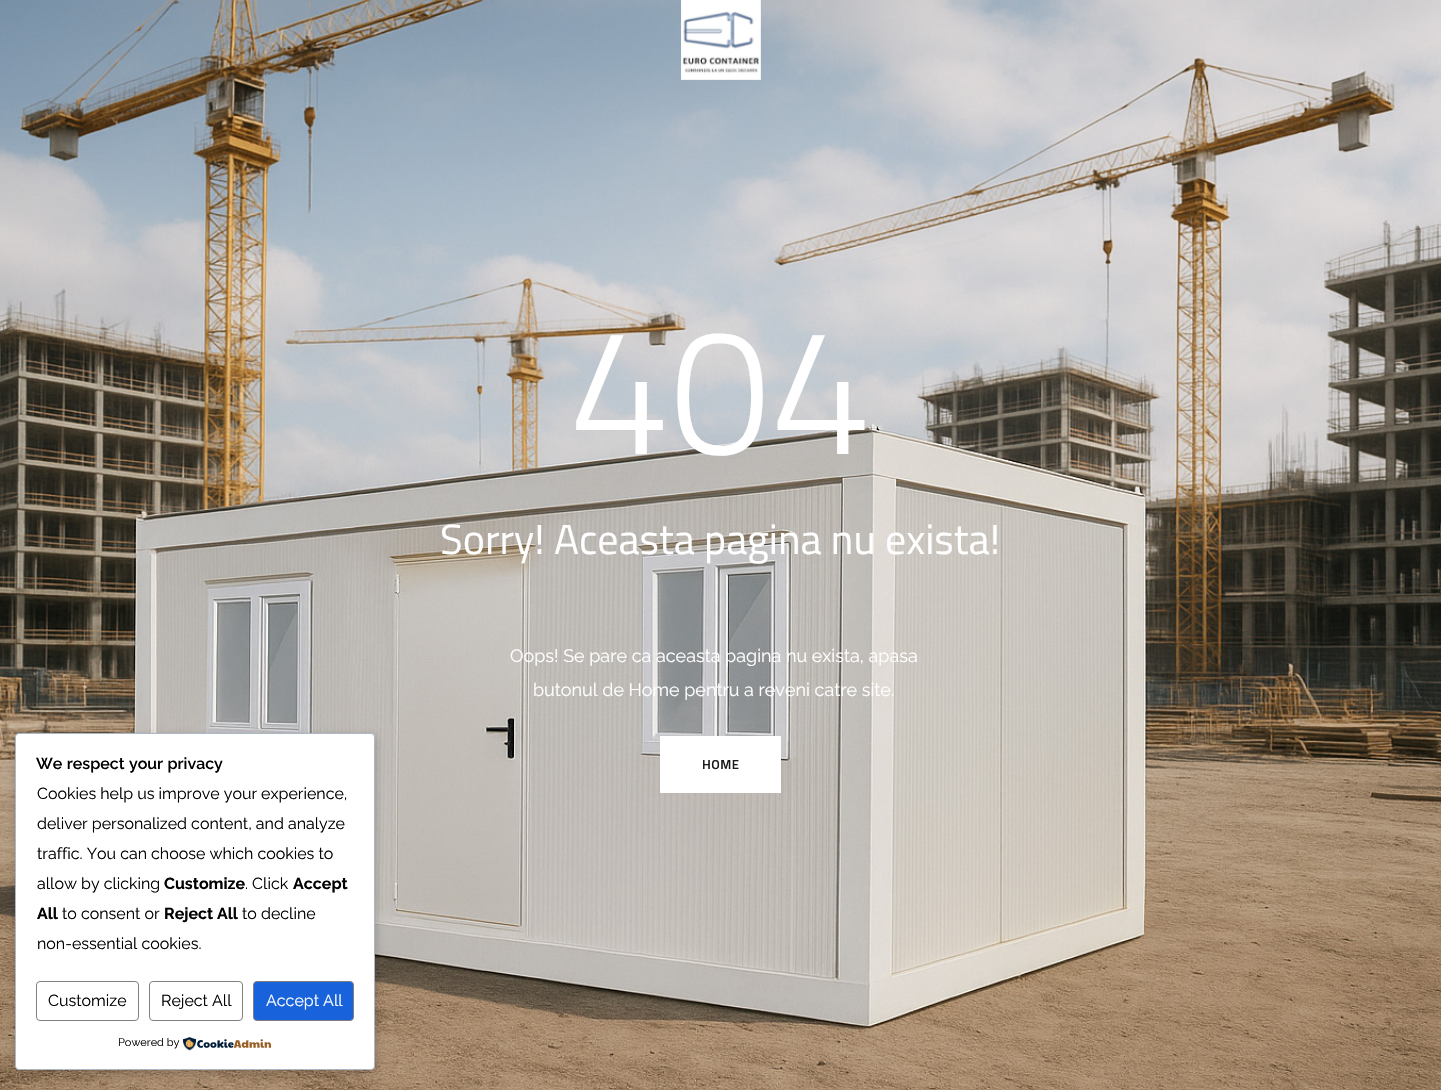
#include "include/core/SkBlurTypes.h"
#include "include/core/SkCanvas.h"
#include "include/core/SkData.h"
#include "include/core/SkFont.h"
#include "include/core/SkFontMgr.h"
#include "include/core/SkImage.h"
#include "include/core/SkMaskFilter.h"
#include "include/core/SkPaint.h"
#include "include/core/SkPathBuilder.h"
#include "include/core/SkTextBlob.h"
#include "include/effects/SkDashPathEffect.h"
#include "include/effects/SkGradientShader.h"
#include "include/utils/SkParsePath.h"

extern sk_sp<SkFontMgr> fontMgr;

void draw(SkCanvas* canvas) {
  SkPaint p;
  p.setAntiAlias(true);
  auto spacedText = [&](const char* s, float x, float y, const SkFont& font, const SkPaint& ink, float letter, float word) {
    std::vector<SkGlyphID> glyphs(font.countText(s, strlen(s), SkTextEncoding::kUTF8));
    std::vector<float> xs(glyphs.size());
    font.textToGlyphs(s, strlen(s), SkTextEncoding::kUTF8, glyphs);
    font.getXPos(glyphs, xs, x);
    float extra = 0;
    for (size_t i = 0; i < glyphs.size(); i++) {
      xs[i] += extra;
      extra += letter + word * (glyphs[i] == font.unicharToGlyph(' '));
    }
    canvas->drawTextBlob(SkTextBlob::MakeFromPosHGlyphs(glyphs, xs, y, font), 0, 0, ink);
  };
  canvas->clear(SK_ColorWHITE);
  canvas->drawImageRect(SkImages::DeferredFromEncodedData(SkData::MakeFromFileName("images/1.png")), SkRect::MakeLTRB(0, 0, 1441, 1090), SkSamplingOptions());
  canvas->drawImageRect(SkImages::DeferredFromEncodedData(SkData::MakeFromFileName("images/2.png")), SkRect::MakeLTRB(681, 0, 761, 80), SkSamplingOptions());
  p.setColor(SK_ColorWHITE);
  canvas->drawRect(SkRect::MakeLTRB(660, 736, 781, 793), p);
  p.setColor(SkColorSetARGB(51, 0, 0, 0));
  p.setMaskFilter(SkMaskFilter::MakeBlur(kNormal_SkBlurStyle, 5));
  canvas->drawRoundRect(SkRect::MakeLTRB(16, 736, 376, 1073), 4, 4, p);
  p.setMaskFilter(nullptr);
  p.setColor(SK_ColorWHITE);
  canvas->drawRoundRect(SkRect::MakeLTRB(15.5f, 733.5f, 374.5f, 1069.5f), 3.5f, 3.5f, p);
  p.setStyle(SkPaint::kStroke_Style);
  p.setStrokeWidth(1);
  p.setColor(SkColorSetRGB(171, 184, 195));
  canvas->drawRoundRect(SkRect::MakeLTRB(15.5f, 733.5f, 374.5f, 1069.5f), 3.5f, 3.5f, p);
  p.setColor(SkColorSetRGB(128, 128, 128));
  canvas->drawRoundRect(SkRect::MakeLTRB(36.5f, 981.5f, 138.5f, 1020.5f), 3.5f, 3.5f, p);
  canvas->drawRoundRect(SkRect::MakeLTRB(149.5f, 981.5f, 242.5f, 1020.5f), 3.5f, 3.5f, p);
  p.setStyle(SkPaint::kFill_Style);
  p.setColor(SkColorSetRGB(24, 99, 220));
  canvas->drawRoundRect(SkRect::MakeLTRB(253.5f, 981.5f, 353.5f, 1020.5f), 3.5f, 3.5f, p);
  p.setStyle(SkPaint::kStroke_Style);
  p.setColor(SkColorSetRGB(128, 128, 128));
  canvas->drawRoundRect(SkRect::MakeLTRB(253.5f, 981.5f, 353.5f, 1020.5f), 3.5f, 3.5f, p);
  canvas->drawImageRect(SkImages::DeferredFromEncodedData(SkData::MakeFromFileName("images/3.png")), SkRect::MakeLTRB(183, 1037, 271, 1051), SkSamplingOptions());
  SkFont font1(fontMgr->matchFamilyStyle("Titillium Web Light", SkFontStyle(300, SkFontStyle::kNormal_Width, SkFontStyle::kUpright_Slant)), 180);
  font1.setSubpixel(true);
  p.setStyle(SkPaint::kFill_Style);
  p.setColor(SK_ColorWHITE);
  canvas->drawString("404", 569, 454, font1, p);
  SkFont font2(fontMgr->matchFamilyStyle("Titillium Web", SkFontStyle::Normal()), 42);
  font2.setSubpixel(true);
  canvas->drawString("Sorry! Aceasta pagina nu exista!", 440, 554, font2, p);
  SkFont font3(fontMgr->matchFamilyStyle("Raleway", SkFontStyle::Normal()), 18);
  font3.setSubpixel(true);
  canvas->drawString("Oops! Se pare ca aceasta pagina nu exista, apasa", 510, 662, font3, p);
  canvas->drawString("butonul de Home pentru a reveni catre site.", 533, 696, font3, p);
  SkFont font4(fontMgr->matchFamilyStyle("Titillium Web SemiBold", SkFontStyle(600, SkFontStyle::kNormal_Width, SkFontStyle::kUpright_Slant)), 13);
  font4.setSubpixel(true);
  p.setColor(SkColorSetRGB(26, 26, 26));
  spacedText("HOME", 702, 769, font4, p, 0.5f, 0);
  SkFont font5(fontMgr->matchFamilyStyle("Raleway", SkFontStyle(600, SkFontStyle::kNormal_Width, SkFontStyle::kUpright_Slant)), 16);
  font5.setSubpixel(true);
  p.setColor(SK_ColorBLACK);
  spacedText("We respect your privacy", 36, 769, font5, p, 0, 0.5f);
  SkFont font6(fontMgr->matchFamilyStyle("Raleway", SkFontStyle::Normal()), 16);
  font6.setSubpixel(true);
  canvas->drawString("Cookies help us improve your experience,", 37, 799, font6, p);
  canvas->drawString("deliver personalized content, and analyze", 37, 829, font6, p);
  canvas->drawString("traffic. You can choose which cookies to", 37, 859, font6, p);
  canvas->drawString("allow by clicking", 37, 889, font6, p);
  SkFont font7(fontMgr->matchFamilyStyle("Raleway", SkFontStyle::Bold()), 16);
  font7.setSubpixel(true);
  canvas->drawString("Customize", 164, 889, font7, p);
  canvas->drawString(". Click", 245, 889, font6, p);
  canvas->drawString("Accept", 293, 889, font7, p);
  canvas->drawString("All", 37, 919, font7, p);
  canvas->drawString("to consent or", 62, 919, font6, p);
  canvas->drawString("Reject All", 164, 919, font7, p);
  canvas->drawString("to decline", 242, 919, font6, p);
  canvas->drawString("non-essential cookies.", 37, 949, font6, p);
  canvas->drawString("Customize", 48, 1006, font6, p);
  canvas->drawString("Reject All", 161, 1006, font6, p);
  p.setColor(SK_ColorWHITE);
  canvas->drawString("Accept All", 266, 1006, font6, p);
  SkFont font8(fontMgr->matchFamilyStyle("Raleway", SkFontStyle::Normal()), 11);
  font8.setSubpixel(true);
  p.setColor(SK_ColorBLACK);
  canvas->drawString("Powered by", 118, 1046, font8, p);
}
